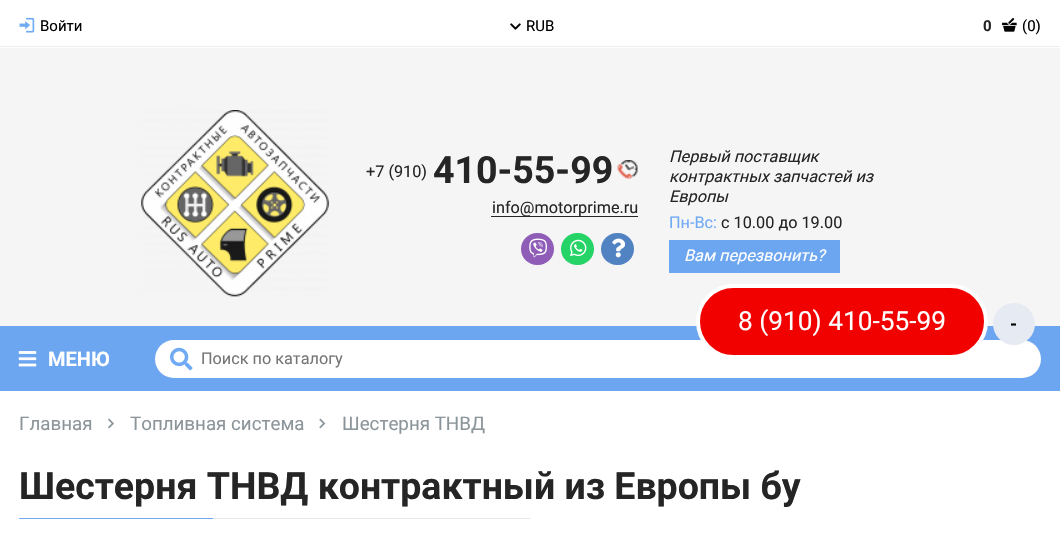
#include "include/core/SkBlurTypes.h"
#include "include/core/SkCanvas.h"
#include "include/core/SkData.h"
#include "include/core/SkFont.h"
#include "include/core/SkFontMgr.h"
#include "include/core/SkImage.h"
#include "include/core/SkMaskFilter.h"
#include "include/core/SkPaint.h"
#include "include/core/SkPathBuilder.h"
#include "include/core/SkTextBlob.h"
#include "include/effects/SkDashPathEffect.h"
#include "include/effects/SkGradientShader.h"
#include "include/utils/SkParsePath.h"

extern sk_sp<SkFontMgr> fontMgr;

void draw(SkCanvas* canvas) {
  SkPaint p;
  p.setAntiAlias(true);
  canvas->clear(SK_ColorWHITE);
  p.setColor(SkColorSetRGB(245, 245, 245));
  canvas->drawRect(SkRect::MakeLTRB(0, 48, 1060, 326), p);
  p.setColor(SkColorSetRGB(236, 236, 236));
  canvas->drawRect(SkRect::MakeLTRB(0, 46, 1060, 47), p);
  canvas->drawImageRect(SkImages::DeferredFromEncodedData(SkData::MakeFromFileName("images/1.png")), SkRect::MakeLTRB(19, 17, 35, 33), SkSamplingOptions());
  canvas->drawImageRect(SkImages::DeferredFromEncodedData(SkData::MakeFromFileName("images/2.png")), SkRect::MakeLTRB(510, 23, 521, 30), SkSamplingOptions());
  canvas->drawImageRect(SkImages::DeferredFromEncodedData(SkData::MakeFromFileName("images/3.png")), SkRect::MakeLTRB(1002, 17, 1017, 32), SkSamplingOptions());
  canvas->drawImageRect(SkImages::DeferredFromEncodedData(SkData::MakeFromFileName("images/4.png")), SkRect::MakeLTRB(141, 110, 329, 297), SkSamplingOptions());
  canvas->drawImageRect(SkImages::DeferredFromEncodedData(SkData::MakeFromFileName("images/5.png")), SkRect::MakeLTRB(617, 160, 638, 179), SkSamplingOptions());
  p.setColor(SkColorSetRGB(37, 37, 37));
  canvas->drawRect(SkRect::MakeLTRB(491, 216, 638, 217), p);
  p.setColor(SkColorSetRGB(143, 93, 183));
  canvas->drawRoundRect(SkRect::MakeLTRB(521, 233, 554, 265), 16, 16, p);
  canvas->drawImageRect(SkImages::DeferredFromEncodedData(SkData::MakeFromFileName("images/6.png")), SkRect::MakeLTRB(529, 238, 547, 258), SkSamplingOptions());
  p.setColor(SkColorSetRGB(37, 211, 102));
  canvas->drawRoundRect(SkRect::MakeLTRB(561, 233, 594, 265), 16, 16, p);
  canvas->drawImageRect(SkImages::DeferredFromEncodedData(SkData::MakeFromFileName("images/7.png")), SkRect::MakeLTRB(570, 239, 587, 257), SkSamplingOptions());
  p.setColor(SkColorSetRGB(81, 130, 194));
  canvas->drawRoundRect(SkRect::MakeLTRB(601, 233, 634, 265), 16, 16, p);
  canvas->drawImageRect(SkImages::DeferredFromEncodedData(SkData::MakeFromFileName("images/8.png")), SkRect::MakeLTRB(612, 238, 626, 258), SkSamplingOptions());
  p.setColor(SkColorSetRGB(108, 165, 240));
  canvas->drawRect(SkRect::MakeLTRB(669, 240, 840, 273), p);
  canvas->drawRect(SkRect::MakeLTRB(0, 326, 1060, 391), p);
  canvas->drawImageRect(SkImages::DeferredFromEncodedData(SkData::MakeFromFileName("images/9.png")), SkRect::MakeLTRB(18, 351, 37, 367), SkSamplingOptions());
  p.setColor(SK_ColorWHITE);
  canvas->drawRoundRect(SkRect::MakeLTRB(155, 340, 1041, 378), 19, 19, p);
  canvas->drawImageRect(SkImages::DeferredFromEncodedData(SkData::MakeFromFileName("images/10.png")), SkRect::MakeLTRB(170, 347, 193, 371), SkSamplingOptions());
  canvas->drawImageRect(SkImages::DeferredFromEncodedData(SkData::MakeFromFileName("images/11.png")), SkRect::MakeLTRB(108, 418, 114, 429), SkSamplingOptions());
  canvas->drawImageRect(SkImages::DeferredFromEncodedData(SkData::MakeFromFileName("images/12.png")), SkRect::MakeLTRB(319, 418, 326, 429), SkSamplingOptions());
  p.setColor(SkColorSetRGB(112, 170, 245));
  canvas->drawRect(SkRect::MakeLTRB(19, 518, 213, 519), p);
  p.setColor(SkColorSetRGB(230, 230, 230));
  canvas->drawRect(SkRect::MakeLTRB(213, 518, 530, 519), p);
  p.setColor(SkColorSetRGB(241, 1, 0));
  canvas->drawRoundRect(SkRect::MakeLTRB(698, 286, 986, 357), 35.5f, 35.5f, p);
  p.setStyle(SkPaint::kStroke_Style);
  p.setStrokeWidth(4);
  p.setColor(SK_ColorWHITE);
  canvas->drawRoundRect(SkRect::MakeLTRB(698, 286, 986, 357), 35.5f, 35.5f, p);
  p.setStyle(SkPaint::kFill_Style);
  p.setColor(SkColorSetRGB(230, 234, 242));
  canvas->drawCircle(1014, 324, 21, p);
  SkFont font1(fontMgr->matchFamilyStyle("Roboto", SkFontStyle::Normal()), 15);
  font1.setSubpixel(true);
  p.setColor(SK_ColorBLACK);
  canvas->drawString("Войти", 40, 31, font1, p);
  canvas->drawString("RUB", 526, 31, font1, p);
  SkFont font2(fontMgr->matchFamilyStyle("Roboto", SkFontStyle::Bold()), 15);
  font2.setSubpixel(true);
  p.setColor(SkColorSetRGB(37, 37, 37));
  canvas->drawString("0", 983, 31, font2, p);
  p.setColor(SK_ColorBLACK);
  canvas->drawString("(0)", 1022, 31, font1, p);
  SkFont font3(fontMgr->matchFamilyStyle("Roboto", SkFontStyle::Normal()), 16.25f);
  font3.setSubpixel(true);
  p.setColor(SkColorSetRGB(37, 37, 37));
  canvas->drawString("+7 (910)", 366, 177, font3, p);
  SkFont font4(fontMgr->matchFamilyStyle("Roboto", SkFontStyle::Bold()), 37.5f);
  font4.setSubpixel(true);
  canvas->drawString("410-55-99", 433, 183, font4, p);
  canvas->drawString("info@motorprime.ru", 492, 213, font3, p);
  SkFont font5(fontMgr->matchFamilyStyle("Roboto", SkFontStyle::Italic()), 16.25f);
  font5.setSubpixel(true);
  canvas->drawString("Первый поставщик", 669, 162, font5, p);
  canvas->drawString("контрактных запчастей из", 669, 182, font5, p);
  canvas->drawString("Европы", 669, 202, font5, p);
  p.setColor(SkColorSetRGB(112, 170, 245));
  canvas->drawString("Пн-Вс:", 669, 228, font3, p);
  p.setColor(SkColorSetRGB(37, 37, 37));
  canvas->drawString("с 10.00 до 19.00", 721, 228, font3, p);
  p.setColor(SK_ColorWHITE);
  canvas->drawString("Вам перезвонить?", 684, 261, font5, p);
  SkFont font6(fontMgr->matchFamilyStyle("Roboto", SkFontStyle::Bold()), 20);
  font6.setSubpixel(true);
  canvas->drawString("МЕНЮ", 48, 366, font6, p);
  p.setColor(SkColorSetRGB(117, 117, 117));
  canvas->drawString("Поиск по каталогу", 201, 364, font3, p);
  SkFont font7(fontMgr->matchFamilyStyle("Roboto", SkFontStyle::Normal()), 18.75f);
  font7.setSubpixel(true);
  p.setColor(SkColorSetRGB(139, 149, 154));
  canvas->drawString("Главная", 19, 430, font7, p);
  canvas->drawString("Топливная система", 130, 430, font7, p);
  canvas->drawString("Шестерня ТНВД", 342, 430, font7, p);
  p.setColor(SkColorSetRGB(37, 37, 37));
  canvas->drawString("Шестерня ТНВД контрактный из Европы бу", 19, 499, font4, p);
  SkFont font8(fontMgr->matchFamilyStyle("Roboto", SkFontStyle::Normal()), 26.25f);
  font8.setSubpixel(true);
  p.setColor(SK_ColorWHITE);
  canvas->drawString("8 (910) 410-55-99", 738, 330, font8, p);
  SkFont font9(fontMgr->matchFamilyStyle("Roboto", SkFontStyle::Bold()), 18);
  font9.setSubpixel(true);
  p.setColor(SK_ColorBLACK);
  canvas->drawString("-", 1010, 330, font9, p);
}
